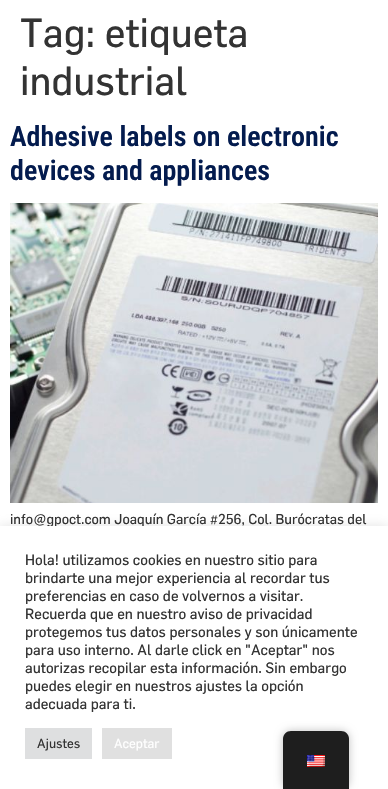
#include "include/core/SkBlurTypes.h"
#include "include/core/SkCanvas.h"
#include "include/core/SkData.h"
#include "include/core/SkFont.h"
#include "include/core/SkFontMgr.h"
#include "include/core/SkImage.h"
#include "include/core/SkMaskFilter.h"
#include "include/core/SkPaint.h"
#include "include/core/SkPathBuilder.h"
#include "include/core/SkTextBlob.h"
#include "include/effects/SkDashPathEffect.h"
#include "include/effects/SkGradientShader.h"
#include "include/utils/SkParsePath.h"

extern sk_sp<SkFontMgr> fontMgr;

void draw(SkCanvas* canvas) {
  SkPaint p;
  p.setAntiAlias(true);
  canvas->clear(SK_ColorWHITE);
  canvas->drawImageRect(SkImages::DeferredFromEncodedData(SkData::MakeFromFileName("images/1.png")), SkRect::MakeLTRB(10, 203, 378, 503), SkSamplingOptions());
  p.setColor(SkColorSetARGB(77, 172, 171, 171));
  p.setMaskFilter(SkMaskFilter::MakeBlur(kNormal_SkBlurStyle, 5));
  canvas->drawRect(SkRect::MakeLTRB(0, 525, 388, 788), p);
  p.setMaskFilter(nullptr);
  SkFont font1(fontMgr->matchFamilyStyle("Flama", SkFontStyle(500, SkFontStyle::kNormal_Width, SkFontStyle::kUpright_Slant)), 40);
  font1.setSubpixel(true);
  p.setColor(SkColorSetRGB(51, 51, 51));
  canvas->drawString("Tag: etiqueta", 20, 47, font1, p);
  canvas->drawString("industrial", 20, 95, font1, p);
  SkFont font2(fontMgr->matchFamilyStyle("Roboto Condensed", SkFontStyle(600, SkFontStyle::kNormal_Width, SkFontStyle::kUpright_Slant)), 28);
  font2.setSubpixel(true);
  p.setColor(SkColorSetRGB(3, 27, 78));
  canvas->drawString("Adhesive labels on electronic", 10, 146, font2, p);
  canvas->drawString("devices and appliances", 10, 180, font2, p);
  SkFont font3(fontMgr->matchFamilyStyle("Flama", SkFontStyle(500, SkFontStyle::kNormal_Width, SkFontStyle::kUpright_Slant)), 14);
  font3.setSubpixel(true);
  p.setColor(SkColorSetRGB(51, 51, 51));
  canvas->drawString("info@gpoct.com Joaquín García #256, Col. Burócratas del", 10, 524, font3, p);
  p.setColor(SK_ColorWHITE);
  canvas->drawRect(SkRect::MakeLTRB(0, 526, 388, 789), p);
  SkFont font4(fontMgr->matchFamilyStyle("Flama", SkFontStyle(500, SkFontStyle::kNormal_Width, SkFontStyle::kUpright_Slant)), 14.7f);
  font4.setSubpixel(true);
  p.setColor(SkColorSetRGB(51, 51, 51));
  canvas->drawString("Hola! utilizamos cookies en nuestro sitio para", 25, 565, font4, p);
  canvas->drawString("brindarte una mejor experiencia al recordar tus", 25, 583, font4, p);
  canvas->drawString("preferencias en caso de volvernos a visitar.", 25, 601, font4, p);
  canvas->drawString("Recuerda que en nuestro aviso de privacidad", 25, 619, font4, p);
  canvas->drawString("protegemos tus datos personales y son únicamente", 25, 637, font4, p);
  canvas->drawString("para uso interno. Al darle click en \"Aceptar\" nos", 25, 655, font4, p);
  canvas->drawString("autorizas recopilar esta información. Sin embargo", 25, 673, font4, p);
  canvas->drawString("puedes elegir en nuestros ajustes la opción", 25, 691, font4, p);
  canvas->drawString("adecuada para ti.", 25, 709, font4, p);
  p.setColor(SkColorSetRGB(222, 223, 224));
  canvas->drawRect(SkRect::MakeLTRB(25, 728, 92, 759), p);
  SkFont font5(fontMgr->matchFamilyStyle("Flama", SkFontStyle(500, SkFontStyle::kNormal_Width, SkFontStyle::kUpright_Slant)), 13);
  font5.setSubpixel(true);
  p.setColor(SkColorSetRGB(51, 51, 51));
  canvas->drawString("Ajustes", 37, 748, font5, p);
  p.setColor(SkColorSetRGB(224, 224, 224));
  canvas->drawRect(SkRect::MakeLTRB(102, 728, 172, 759), p);
  p.setColor(SK_ColorWHITE);
  canvas->drawString("Aceptar", 114, 748, font5, p);
  p.setColor(SkColorSetARGB(64, 0, 0, 0));
  p.setMaskFilter(SkMaskFilter::MakeBlur(kNormal_SkBlurStyle, 4));
  canvas->drawRoundRect(SkRect::MakeLTRB(283, 731, 349, 789), 8, 8, p);
  p.setMaskFilter(nullptr);
  p.setColor(SkColorSetRGB(30, 30, 30));
  canvas->drawPath(SkPathBuilder().moveTo(291, 731).lineTo(341, 731).cubicTo(345.5f, 731, 349, 734.5f, 349, 739).lineTo(349, 789).lineTo(283, 789).lineTo(283, 739).cubicTo(283, 734.5f, 286.5f, 731, 291, 731).close().detach(), p);
  canvas->drawImageRect(SkImages::DeferredFromEncodedData(SkData::MakeFromFileName("images/2.png")), SkRect::MakeLTRB(307, 755, 325, 767), SkSamplingOptions());
}
